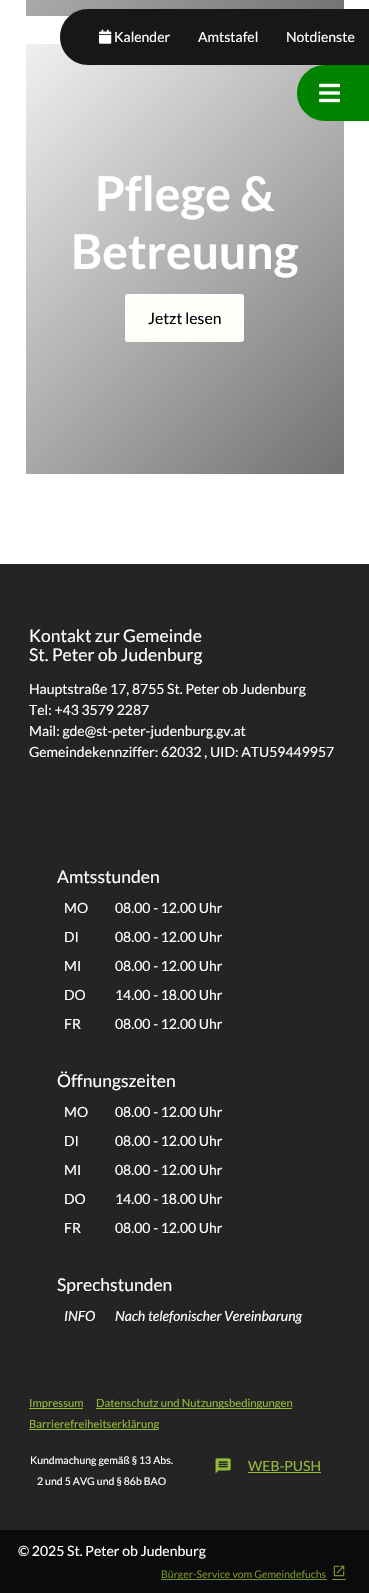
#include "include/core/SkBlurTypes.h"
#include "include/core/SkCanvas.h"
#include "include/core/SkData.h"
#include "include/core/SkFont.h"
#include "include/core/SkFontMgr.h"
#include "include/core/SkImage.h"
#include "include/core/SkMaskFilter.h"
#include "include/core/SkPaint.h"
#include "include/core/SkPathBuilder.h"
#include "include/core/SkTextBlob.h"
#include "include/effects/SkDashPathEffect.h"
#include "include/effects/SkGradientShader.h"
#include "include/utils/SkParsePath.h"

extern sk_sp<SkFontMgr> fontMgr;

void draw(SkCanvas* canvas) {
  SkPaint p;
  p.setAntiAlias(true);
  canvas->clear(SK_ColorWHITE);
  {
    const SkColor colors[] = {SkColorSetRGB(240, 240, 240), SkColorSetRGB(115, 114, 114)};
    const float stops[] = {0, 1};
    const SkPoint ends[] = {{-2, -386}, {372, -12}};
    p.setShader(SkGradientShader::MakeLinear(ends, colors, stops, 2, SkTileMode::kClamp));
    p.setAlpha(255);
  }
  canvas->drawRect(SkRect::MakeLTRB(26, 0, 344, 16), p);
  {
    const SkColor colors[] = {SkColorSetRGB(240, 240, 240), SkColorSetRGB(115, 114, 114)};
    const float stops[] = {0, 1};
    const SkPoint ends[] = {{-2, 72}, {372, 446}};
    p.setShader(SkGradientShader::MakeLinear(ends, colors, stops, 2, SkTileMode::kClamp));
    p.setAlpha(255);
  }
  canvas->drawRect(SkRect::MakeLTRB(26, 44, 344, 474), p);
  p.setShader(nullptr);
  p.setColor(SkColorSetRGB(23, 23, 23));
  canvas->drawPath(SkPathBuilder().moveTo(88, 9).lineTo(369, 9).lineTo(369, 65).lineTo(88, 65).cubicTo(72.5f, 65, 60, 52.5f, 60, 37).cubicTo(60, 21.5f, 72.5f, 9, 88, 9).close().detach(), p);
  canvas->drawImageRect(SkImages::DeferredFromEncodedData(SkData::MakeFromFileName("images/1.png")), SkRect::MakeLTRB(99, 29, 112, 44), SkSamplingOptions());
  p.setColor(SkColorSetRGB(0, 132, 0));
  canvas->drawPath(SkPathBuilder().moveTo(325, 65).lineTo(369, 65).lineTo(369, 121).lineTo(325, 121).cubicTo(309.5f, 121, 297, 108.5f, 297, 93).cubicTo(297, 77.5f, 309.5f, 65, 325, 65).close().detach(), p);
  canvas->drawImageRect(SkImages::DeferredFromEncodedData(SkData::MakeFromFileName("images/2.png")), SkRect::MakeLTRB(319, 83, 340, 103), SkSamplingOptions());
  p.setColor(SkColorSetRGB(255, 255, 250));
  canvas->drawRoundRect(SkRect::MakeLTRB(125, 294, 244, 342), 3, 3, p);
  p.setColor(SkColorSetRGB(36, 36, 36));
  canvas->drawRect(SkRect::MakeLTRB(0, 564, 369, 1530), p);
  p.setColor(SkColorSetRGB(32, 32, 32));
  canvas->drawRect(SkRect::MakeLTRB(56, 922, 313, 923), p);
  canvas->drawRect(SkRect::MakeLTRB(56, 951, 313, 952), p);
  canvas->drawRect(SkRect::MakeLTRB(56, 980, 313, 981), p);
  canvas->drawRect(SkRect::MakeLTRB(56, 1009, 313, 1010), p);
  canvas->drawRect(SkRect::MakeLTRB(56, 1038, 313, 1039), p);
  canvas->drawRect(SkRect::MakeLTRB(56, 1126, 313, 1127), p);
  canvas->drawRect(SkRect::MakeLTRB(56, 1155, 313, 1156), p);
  canvas->drawRect(SkRect::MakeLTRB(56, 1184, 313, 1185), p);
  canvas->drawRect(SkRect::MakeLTRB(56, 1213, 313, 1214), p);
  canvas->drawRect(SkRect::MakeLTRB(56, 1242, 313, 1243), p);
  canvas->drawRect(SkRect::MakeLTRB(56, 1329, 313, 1330), p);
  p.setColor(SkColorSetRGB(149, 186, 58));
  canvas->drawRect(SkRect::MakeLTRB(29, 1408, 83, 1409), p);
  canvas->drawRect(SkRect::MakeLTRB(96, 1408, 292, 1409), p);
  canvas->drawRect(SkRect::MakeLTRB(29, 1429, 158, 1430), p);
  canvas->drawImageRect(SkImages::DeferredFromEncodedData(SkData::MakeFromFileName("images/3.png")), SkRect::MakeLTRB(215, 1458, 231, 1474), SkSamplingOptions());
  canvas->drawRect(SkRect::MakeLTRB(248, 1472, 321, 1473), p);
  p.setColor(SkColorSetRGB(11, 11, 11));
  canvas->drawRect(SkRect::MakeLTRB(0, 1530, 369, 1593), p);
  p.setColor(SkColorSetRGB(118, 147, 46));
  canvas->drawRect(SkRect::MakeLTRB(161, 1579, 327, 1580), p);
  canvas->drawImageRect(SkImages::DeferredFromEncodedData(SkData::MakeFromFileName("images/4.png")), SkRect::MakeLTRB(333, 1565, 345, 1577), SkSamplingOptions());
  canvas->drawRect(SkRect::MakeLTRB(332, 1579, 346, 1580), p);
  SkFont font1(fontMgr->matchFamilyStyle("Lato", SkFontStyle::Normal()), 14);
  font1.setSubpixel(true);
  p.setColor(SK_ColorWHITE);
  canvas->drawString("Kalender", 114, 42, font1, p);
  canvas->drawString("Amtstafel", 198, 42, font1, p);
  canvas->drawString("Notdienste", 286, 42, font1, p);
  SkFont font2(fontMgr->matchFamilyStyle("Lato", SkFontStyle::Bold()), 48);
  font2.setSubpixel(true);
  canvas->drawString("Pflege &", 95, 211, font2, p);
  canvas->drawString("Betreuung", 71, 269, font2, p);
  SkFont font3(fontMgr->matchFamilyStyle("Lato", SkFontStyle::Normal()), 15.75f);
  font3.setSubpixel(true);
  p.setColor(SkColorSetRGB(0, 0, 10));
  canvas->drawString("Jetzt lesen", 148, 324, font3, p);
  SkFont font4(fontMgr->matchFamilyStyle("Lato", SkFontStyle::Normal()), 17.5f);
  font4.setSubpixel(true);
  p.setColor(SK_ColorWHITE);
  canvas->drawString("Kontakt zur Gemeinde", 29, 642, font4, p);
  canvas->drawString("St. Peter ob Judenburg", 29, 661, font4, p);
  canvas->drawString("Hauptstraße 17, 8755 St. Peter ob Judenburg", 29, 694, font1, p);
  canvas->drawString("Tel: +43 3579 2287", 29, 715, font1, p);
  canvas->drawString("Mail: gde@st-peter-judenburg.gv.at", 29, 736, font1, p);
  canvas->drawString("Gemeindekennziffer: 62032 , UID: ATU59449957", 29, 757, font1, p);
  canvas->drawString("Amtsstunden", 57, 883, font4, p);
  canvas->drawString("MO", 64, 913, font1, p);
  canvas->drawString("08.00 - 12.00 Uhr", 115, 913, font1, p);
  canvas->drawString("DI", 64, 942, font1, p);
  canvas->drawString("08.00 - 12.00 Uhr", 115, 942, font1, p);
  canvas->drawString("MI", 64, 971, font1, p);
  canvas->drawString("08.00 - 12.00 Uhr", 115, 971, font1, p);
  canvas->drawString("DO", 64, 1000, font1, p);
  canvas->drawString("14.00 - 18.00 Uhr", 115, 1000, font1, p);
  canvas->drawString("FR", 64, 1029, font1, p);
  canvas->drawString("08.00 - 12.00 Uhr", 115, 1029, font1, p);
  canvas->drawString("Öffnungszeiten", 57, 1087, font4, p);
  canvas->drawString("MO", 64, 1117, font1, p);
  canvas->drawString("08.00 - 12.00 Uhr", 115, 1117, font1, p);
  canvas->drawString("DI", 64, 1146, font1, p);
  canvas->drawString("08.00 - 12.00 Uhr", 115, 1146, font1, p);
  canvas->drawString("MI", 64, 1175, font1, p);
  canvas->drawString("08.00 - 12.00 Uhr", 115, 1175, font1, p);
  canvas->drawString("DO", 64, 1204, font1, p);
  canvas->drawString("14.00 - 18.00 Uhr", 115, 1204, font1, p);
  canvas->drawString("FR", 64, 1233, font1, p);
  canvas->drawString("08.00 - 12.00 Uhr", 115, 1233, font1, p);
  canvas->drawString("Sprechstunden", 57, 1291, font4, p);
  SkFont font5(fontMgr->matchFamilyStyle("Lato", SkFontStyle::Italic()), 14);
  font5.setSubpixel(true);
  canvas->drawString("INFO", 64, 1321, font5, p);
  canvas->drawString("Nach telefonischer Vereinbarung", 115, 1321, font5, p);
  SkFont font6(fontMgr->matchFamilyStyle("Lato", SkFontStyle::Normal()), 11.25f);
  font6.setSubpixel(true);
  p.setColor(SkColorSetRGB(149, 186, 58));
  canvas->drawString("Impressum", 29, 1407, font6, p);
  canvas->drawString("Datenschutz und Nutzungsbedingungen", 96, 1407, font6, p);
  canvas->drawString("Barrierefreiheitserklärung", 29, 1428, font6, p);
  SkFont font7(fontMgr->matchFamilyStyle("Lato", SkFontStyle::Normal()), 10.5f);
  font7.setSubpixel(true);
  p.setColor(SK_ColorWHITE);
  canvas->drawString("Kundmachung gemäß § 13 Abs.", 30, 1464, font7, p);
  canvas->drawString("2 und 5 AVG und § 86b BAO", 37, 1485, font7, p);
  p.setColor(SkColorSetRGB(149, 186, 58));
  canvas->drawString("WEB-PUSH", 248, 1471, font1, p);
  p.setColor(SK_ColorWHITE);
  canvas->drawString("© 2025 St. Peter ob Judenburg", 18, 1556, font1, p);
  p.setColor(SkColorSetRGB(118, 147, 46));
  canvas->drawString("Bürger-Service vom Gemeindefuchs", 161, 1578, font7, p);
}
